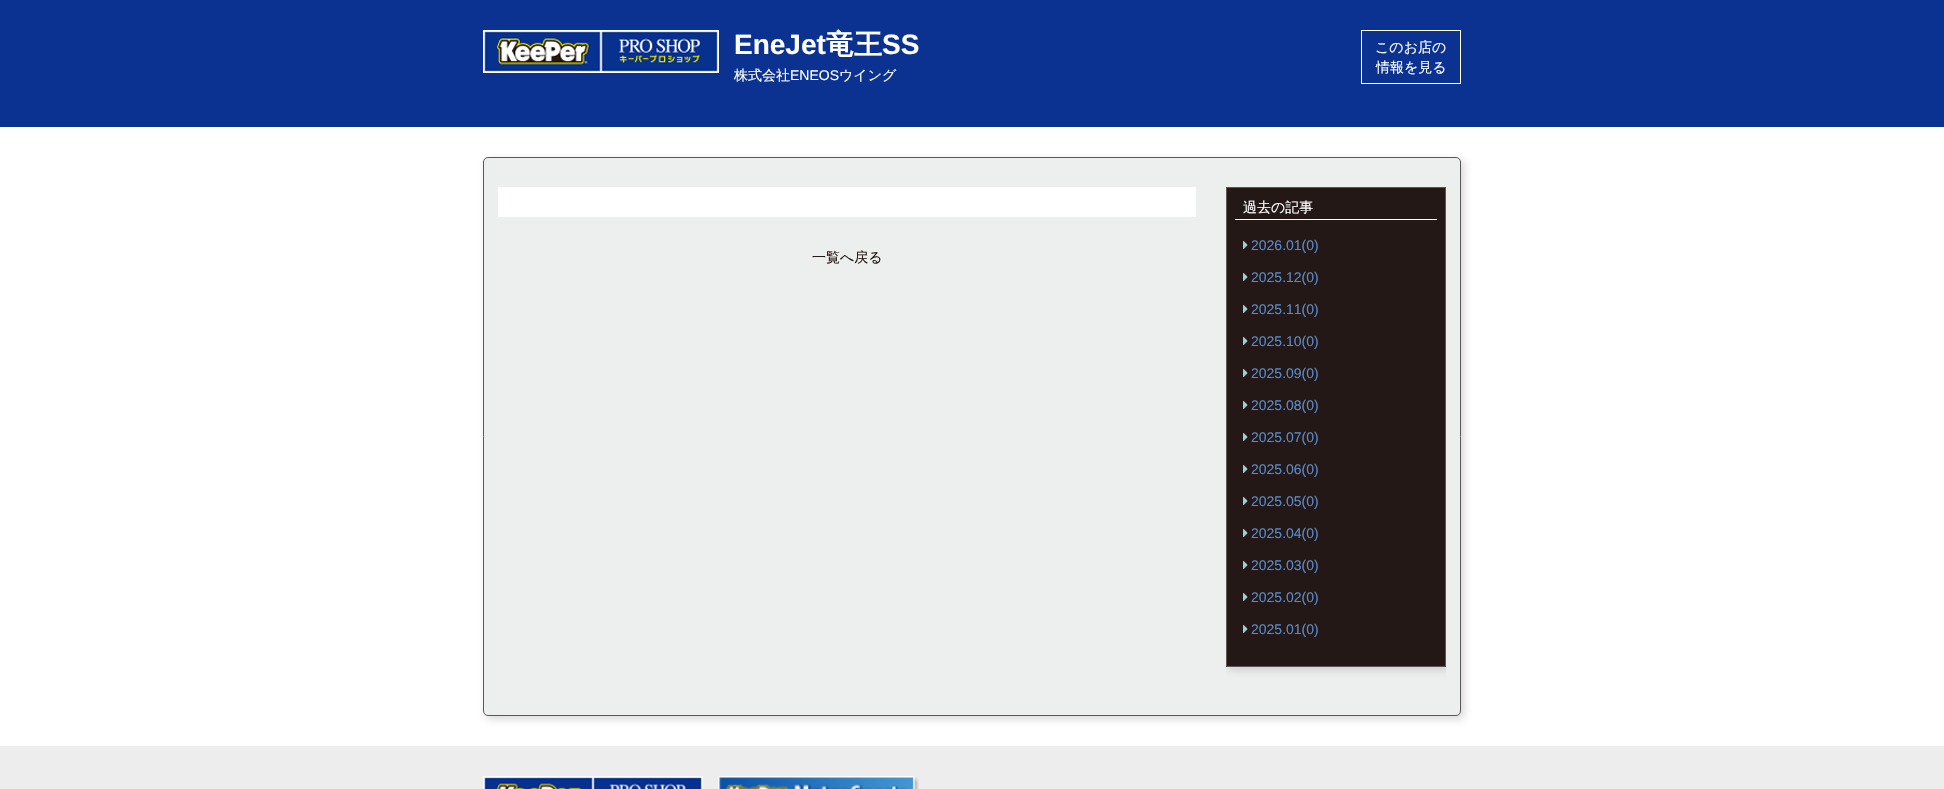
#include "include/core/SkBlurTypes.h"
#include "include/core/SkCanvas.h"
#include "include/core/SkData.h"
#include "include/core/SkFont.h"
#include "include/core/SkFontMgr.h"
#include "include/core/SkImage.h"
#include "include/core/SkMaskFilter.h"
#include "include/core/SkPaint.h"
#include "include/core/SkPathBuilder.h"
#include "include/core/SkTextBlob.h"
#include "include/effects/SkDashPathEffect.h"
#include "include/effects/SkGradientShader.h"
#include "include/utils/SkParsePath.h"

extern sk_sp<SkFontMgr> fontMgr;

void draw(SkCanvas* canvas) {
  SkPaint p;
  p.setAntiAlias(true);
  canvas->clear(SK_ColorWHITE);
  p.setColor(SkColorSetRGB(11, 50, 144));
  canvas->drawRect(SkRect::MakeLTRB(0, 0, 1944, 127), p);
  canvas->drawImageRect(SkImages::DeferredFromEncodedData(SkData::MakeFromFileName("images/1.png")), SkRect::MakeLTRB(483, 30, 719, 73), SkSamplingOptions());
  p.setStyle(SkPaint::kStroke_Style);
  p.setStrokeWidth(1);
  p.setColor(SK_ColorWHITE);
  canvas->drawRect(SkRect::MakeLTRB(1361.5f, 30.5f, 1460.5f, 83.5f), p);
  p.setStyle(SkPaint::kFill_Style);
  p.setColor(SkColorSetARGB(59, 153, 153, 153));
  p.setMaskFilter(SkMaskFilter::MakeBlur(kNormal_SkBlurStyle, 4));
  canvas->drawRoundRect(SkRect::MakeLTRB(486, 160, 1464, 719), 5, 5, p);
  p.setMaskFilter(nullptr);
  p.setColor(SkColorSetARGB(48, 153, 153, 153));
  p.setMaskFilter(SkMaskFilter::MakeBlur(kNormal_SkBlurStyle, 4));
  canvas->drawRoundRect(SkRect::MakeLTRB(486, 160, 1464, 719), 5, 5, p);
  p.setMaskFilter(nullptr);
  p.setColor(SkColorSetRGB(237, 238, 238));
  canvas->drawRoundRect(SkRect::MakeLTRB(483.5f, 157.5f, 1460.5f, 715.5f), 4.5f, 4.5f, p);
  p.setStyle(SkPaint::kStroke_Style);
  p.setColor(SkColorSetRGB(89, 87, 87));
  canvas->drawRoundRect(SkRect::MakeLTRB(483.5f, 157.5f, 1460.5f, 715.5f), 4.5f, 4.5f, p);
  p.setStyle(SkPaint::kFill_Style);
  p.setColor(SK_ColorWHITE);
  canvas->drawRect(SkRect::MakeLTRB(498, 187, 1196, 217), p);
  canvas->save();
  canvas->clipRect(SkRect::MakeLTRB(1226, 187, 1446, 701));
  p.setColor(SkColorSetARGB(59, 153, 153, 153));
  p.setMaskFilter(SkMaskFilter::MakeBlur(kNormal_SkBlurStyle, 4));
  canvas->drawRect(SkRect::MakeLTRB(1229, 190, 1449, 670), p);
  p.setMaskFilter(nullptr);
  p.setColor(SkColorSetARGB(48, 153, 153, 153));
  p.setMaskFilter(SkMaskFilter::MakeBlur(kNormal_SkBlurStyle, 4));
  canvas->drawRect(SkRect::MakeLTRB(1229, 190, 1449, 670), p);
  p.setMaskFilter(nullptr);
  canvas->restore();
  p.setColor(SkColorSetRGB(35, 24, 21));
  canvas->drawRect(SkRect::MakeLTRB(1226.5f, 187.5f, 1445.5f, 666.5f), p);
  p.setStyle(SkPaint::kStroke_Style);
  p.setColor(SkColorSetRGB(89, 87, 87));
  canvas->drawRect(SkRect::MakeLTRB(1226.5f, 187.5f, 1445.5f, 666.5f), p);
  p.setStyle(SkPaint::kFill_Style);
  p.setColor(SK_ColorWHITE);
  canvas->drawRect(SkRect::MakeLTRB(1235, 219, 1437, 220), p);
  canvas->drawImageRect(SkImages::DeferredFromEncodedData(SkData::MakeFromFileName("images/2.png")), SkRect::MakeLTRB(1243, 241, 1248, 249), SkSamplingOptions());
  canvas->drawImageRect(SkImages::DeferredFromEncodedData(SkData::MakeFromFileName("images/2.png")), SkRect::MakeLTRB(1243, 273, 1248, 281), SkSamplingOptions());
  canvas->drawImageRect(SkImages::DeferredFromEncodedData(SkData::MakeFromFileName("images/2.png")), SkRect::MakeLTRB(1243, 305, 1248, 313), SkSamplingOptions());
  canvas->drawImageRect(SkImages::DeferredFromEncodedData(SkData::MakeFromFileName("images/2.png")), SkRect::MakeLTRB(1243, 337, 1248, 345), SkSamplingOptions());
  canvas->drawImageRect(SkImages::DeferredFromEncodedData(SkData::MakeFromFileName("images/2.png")), SkRect::MakeLTRB(1243, 369, 1248, 377), SkSamplingOptions());
  canvas->drawImageRect(SkImages::DeferredFromEncodedData(SkData::MakeFromFileName("images/2.png")), SkRect::MakeLTRB(1243, 401, 1248, 409), SkSamplingOptions());
  canvas->drawImageRect(SkImages::DeferredFromEncodedData(SkData::MakeFromFileName("images/2.png")), SkRect::MakeLTRB(1243, 433, 1248, 441), SkSamplingOptions());
  canvas->drawImageRect(SkImages::DeferredFromEncodedData(SkData::MakeFromFileName("images/2.png")), SkRect::MakeLTRB(1243, 465, 1248, 473), SkSamplingOptions());
  canvas->drawImageRect(SkImages::DeferredFromEncodedData(SkData::MakeFromFileName("images/2.png")), SkRect::MakeLTRB(1243, 497, 1248, 505), SkSamplingOptions());
  canvas->drawImageRect(SkImages::DeferredFromEncodedData(SkData::MakeFromFileName("images/2.png")), SkRect::MakeLTRB(1243, 529, 1248, 537), SkSamplingOptions());
  canvas->drawImageRect(SkImages::DeferredFromEncodedData(SkData::MakeFromFileName("images/2.png")), SkRect::MakeLTRB(1243, 561, 1248, 569), SkSamplingOptions());
  canvas->drawImageRect(SkImages::DeferredFromEncodedData(SkData::MakeFromFileName("images/2.png")), SkRect::MakeLTRB(1243, 593, 1248, 601), SkSamplingOptions());
  canvas->drawImageRect(SkImages::DeferredFromEncodedData(SkData::MakeFromFileName("images/2.png")), SkRect::MakeLTRB(1243, 625, 1248, 633), SkSamplingOptions());
  p.setColor(SkColorSetRGB(237, 237, 237));
  canvas->drawRect(SkRect::MakeLTRB(0, 746, 1944, 789), p);
  canvas->drawImageRect(SkImages::DeferredFromEncodedData(SkData::MakeFromFileName("images/3.png")), SkRect::MakeLTRB(483, 776, 703, 789), SkSamplingOptions());
  canvas->drawImageRect(SkImages::DeferredFromEncodedData(SkData::MakeFromFileName("images/4.png")), SkRect::MakeLTRB(718, 776, 919, 789), SkSamplingOptions());
  SkFont font1(fontMgr->matchFamilyStyle("Liberation Sans", SkFontStyle::Bold()), 28);
  font1.setSubpixel(true);
  p.setColor(SK_ColorWHITE);
  canvas->drawString("EneJet", 734, 54, font1, p);
  SkFont font2(fontMgr->matchFamilyStyle("WenQuanYi Zen Hei", SkFontStyle::Bold()), 28);
  font2.setSubpixel(true);
  canvas->drawString("竜王", 826, 54, font2, p);
  canvas->drawString("SS", 882, 54, font1, p);
  SkFont font3(fontMgr->matchFamilyStyle("WenQuanYi Zen Hei", SkFontStyle(500, SkFontStyle::kNormal_Width, SkFontStyle::kUpright_Slant)), 14);
  font3.setSubpixel(true);
  canvas->drawString("株式会社", 734, 80, font3, p);
  SkFont font4(fontMgr->matchFamilyStyle("Liberation Sans", SkFontStyle::Normal()), 14);
  font4.setSubpixel(true);
  canvas->drawString("ENEOS", 790, 80, font4, p);
  canvas->drawString("ウイング", 839, 80, font3, p);
  canvas->drawString("このお店の", 1375, 52, font3, p);
  canvas->drawString("情報を見る", 1376, 72, font3, p);
  p.setColor(SkColorSetRGB(35, 24, 21));
  canvas->drawString("一覧へ戻る", 812, 262, font3, p);
  p.setColor(SK_ColorWHITE);
  canvas->drawString("過去の記事", 1243, 212, font3, p);
  p.setColor(SkColorSetRGB(89, 139, 200));
  canvas->drawString("2026.01(0)", 1251, 250, font4, p);
  canvas->drawString("2025.12(0)", 1251, 282, font4, p);
  canvas->drawString("2025.11(0)", 1251, 314, font4, p);
  canvas->drawString("2025.10(0)", 1251, 346, font4, p);
  canvas->drawString("2025.09(0)", 1251, 378, font4, p);
  canvas->drawString("2025.08(0)", 1251, 410, font4, p);
  canvas->drawString("2025.07(0)", 1251, 442, font4, p);
  canvas->drawString("2025.06(0)", 1251, 474, font4, p);
  canvas->drawString("2025.05(0)", 1251, 506, font4, p);
  canvas->drawString("2025.04(0)", 1251, 538, font4, p);
  canvas->drawString("2025.03(0)", 1251, 570, font4, p);
  canvas->drawString("2025.02(0)", 1251, 602, font4, p);
  canvas->drawString("2025.01(0)", 1251, 634, font4, p);
}
